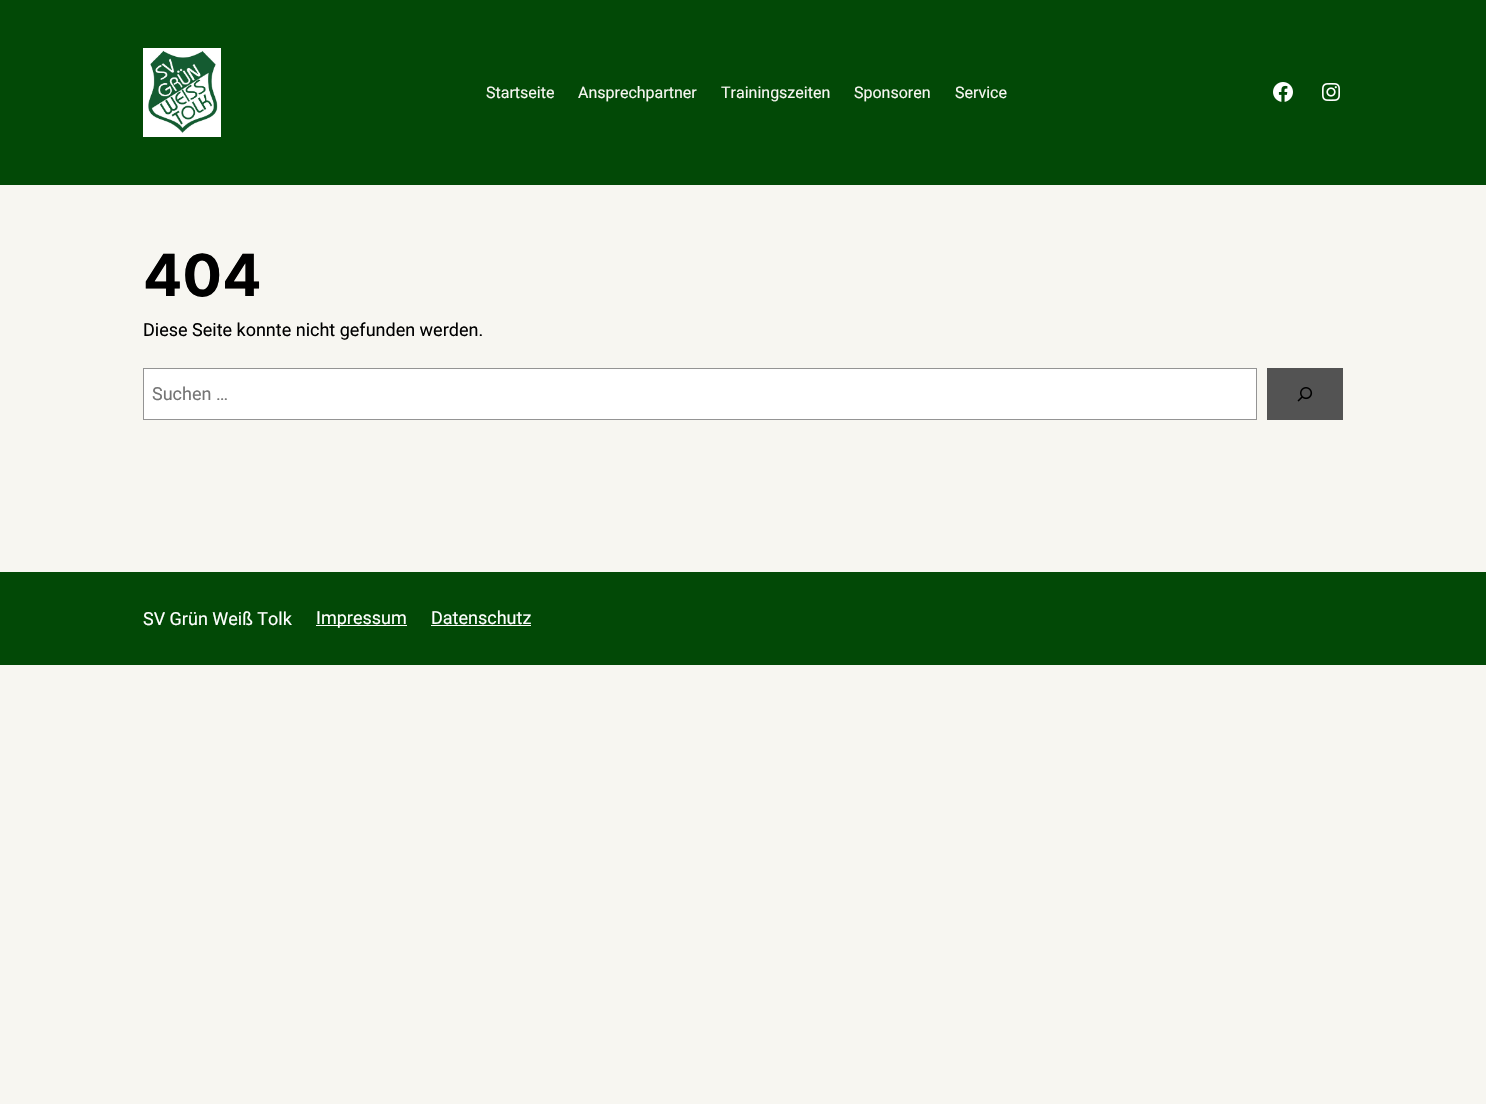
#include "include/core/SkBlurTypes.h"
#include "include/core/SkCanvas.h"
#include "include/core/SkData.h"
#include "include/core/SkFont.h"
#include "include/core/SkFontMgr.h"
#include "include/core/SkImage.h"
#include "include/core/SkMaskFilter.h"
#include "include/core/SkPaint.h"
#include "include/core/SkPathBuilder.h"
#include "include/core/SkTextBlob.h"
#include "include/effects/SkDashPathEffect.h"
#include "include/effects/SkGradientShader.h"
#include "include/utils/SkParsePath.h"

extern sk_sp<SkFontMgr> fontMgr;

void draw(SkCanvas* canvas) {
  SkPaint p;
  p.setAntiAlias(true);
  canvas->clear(SkColorSetRGB(247, 246, 241));
  p.setColor(SkColorSetRGB(2, 73, 6));
  canvas->drawRect(SkRect::MakeLTRB(0, 0, 1486, 185), p);
  canvas->drawImageRect(SkImages::DeferredFromEncodedData(SkData::MakeFromFileName("images/1.png")), SkRect::MakeLTRB(143, 48, 221, 137), SkSamplingOptions());
  canvas->drawImageRect(SkImages::DeferredFromEncodedData(SkData::MakeFromFileName("images/2.png")), SkRect::MakeLTRB(1273, 82, 1293, 102), SkSamplingOptions());
  canvas->drawImageRect(SkImages::DeferredFromEncodedData(SkData::MakeFromFileName("images/3.png")), SkRect::MakeLTRB(1322, 83, 1340, 101), SkSamplingOptions());
  p.setColor(SK_ColorWHITE);
  canvas->drawRect(SkRect::MakeLTRB(143.5f, 368.5f, 1256.5f, 419.5f), p);
  p.setStyle(SkPaint::kStroke_Style);
  p.setStrokeWidth(1);
  p.setColor(SkColorSetRGB(148, 148, 148));
  canvas->drawRect(SkRect::MakeLTRB(143.5f, 368.5f, 1256.5f, 419.5f), p);
  p.setStyle(SkPaint::kFill_Style);
  p.setColor(SkColorSetRGB(83, 83, 83));
  canvas->drawRect(SkRect::MakeLTRB(1267, 368, 1343, 420), p);
  canvas->drawImageRect(SkImages::DeferredFromEncodedData(SkData::MakeFromFileName("images/4.png")), SkRect::MakeLTRB(1297, 387, 1313, 402), SkSamplingOptions());
  p.setColor(SkColorSetRGB(2, 73, 6));
  canvas->drawRect(SkRect::MakeLTRB(0, 572, 1486, 665), p);
  p.setColor(SK_ColorWHITE);
  canvas->drawRect(SkRect::MakeLTRB(316, 625, 407, 626), p);
  canvas->drawRect(SkRect::MakeLTRB(431, 625, 531, 626), p);
  SkFont font1(fontMgr->matchFamilyStyle("Roboto", SkFontStyle::Normal()), 16);
  font1.setSubpixel(true);
  p.setColor(SkColorSetRGB(247, 246, 241));
  canvas->drawString("Startseite", 486, 98, font1, p);
  canvas->drawString("Ansprechpartner", 578, 98, font1, p);
  canvas->drawString("Trainingszeiten", 721, 98, font1, p);
  canvas->drawString("Sponsoren", 854, 98, font1, p);
  canvas->drawString("Service", 955, 98, font1, p);
  SkFont font2(fontMgr->matchFamilyStyle("Inter", SkFontStyle::Bold()), 58);
  font2.setSubpixel(true);
  p.setColor(SK_ColorBLACK);
  canvas->drawString("404", 143, 296, font2, p);
  SkFont font3(fontMgr->matchFamilyStyle("Roboto", SkFontStyle::Normal()), 18);
  font3.setSubpixel(true);
  canvas->drawString("Diese Seite konnte nicht gefunden werden.", 143, 336, font3, p);
  p.setColor(SkColorSetRGB(117, 117, 117));
  canvas->drawString("Suchen …", 152, 400, font3, p);
  p.setColor(SK_ColorWHITE);
  canvas->drawString("SV Grün Weiß Tolk", 143, 625, font3, p);
  canvas->drawString("Impressum", 316, 624, font3, p);
  canvas->drawString("Datenschutz", 431, 624, font3, p);
}
